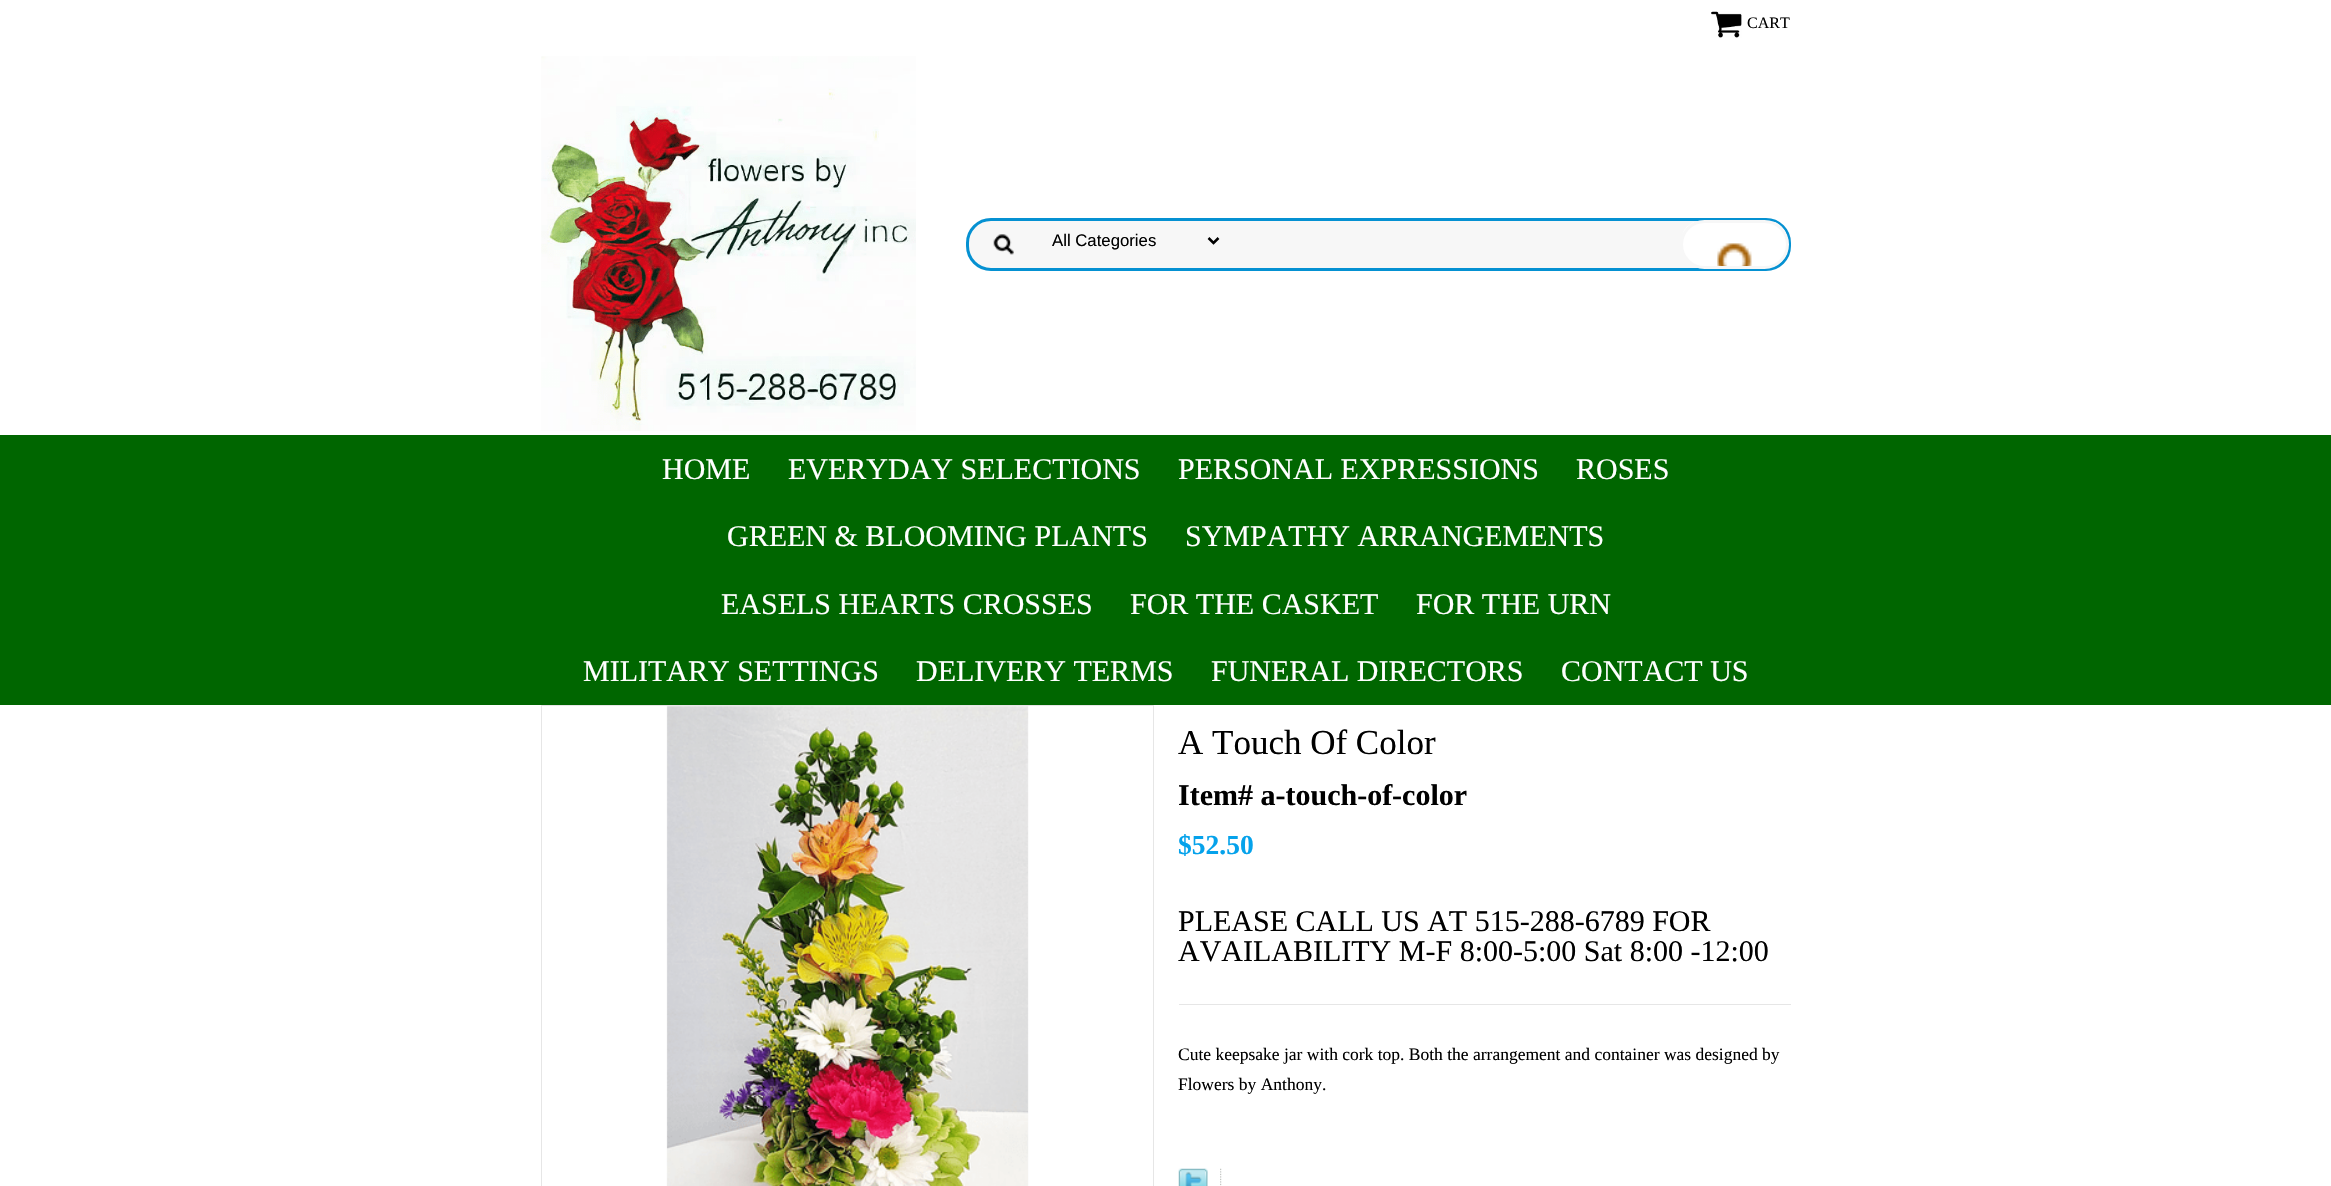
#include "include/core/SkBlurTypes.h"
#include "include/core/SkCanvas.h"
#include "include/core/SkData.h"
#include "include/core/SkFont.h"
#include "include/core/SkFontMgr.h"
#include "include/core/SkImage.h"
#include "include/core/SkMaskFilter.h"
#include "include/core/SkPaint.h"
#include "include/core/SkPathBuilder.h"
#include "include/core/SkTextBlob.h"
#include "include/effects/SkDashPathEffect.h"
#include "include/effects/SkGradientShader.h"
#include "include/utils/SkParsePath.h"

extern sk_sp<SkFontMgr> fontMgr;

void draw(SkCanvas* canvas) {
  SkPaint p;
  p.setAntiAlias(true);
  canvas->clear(SK_ColorWHITE);
  canvas->drawImageRect(SkImages::DeferredFromEncodedData(SkData::MakeFromFileName("images/1.png")), SkRect::MakeLTRB(1711, 11, 1742, 38), SkSamplingOptions());
  canvas->drawImageRect(SkImages::DeferredFromEncodedData(SkData::MakeFromFileName("images/2.png")), SkRect::MakeLTRB(541, 56, 916, 431), SkSamplingOptions());
  p.setColor(SkColorSetRGB(247, 247, 247));
  canvas->drawRoundRect(SkRect::MakeLTRB(966, 218, 1791, 271), 25, 25, p);
  canvas->drawImageRect(SkImages::DeferredFromEncodedData(SkData::MakeFromFileName("images/3.png")), SkRect::MakeLTRB(993, 234, 1014, 255), SkSamplingOptions());
  p.setStyle(SkPaint::kStroke_Style);
  p.setStrokeWidth(3);
  p.setColor(SkColorSetRGB(5, 145, 210));
  canvas->drawRoundRect(SkRect::MakeLTRB(967.5f, 219.5f, 1789.5f, 269.5f), 23.5f, 23.5f, p);
  p.setStrokeWidth(2.5f);
  p.setColor(SK_ColorBLACK);
  canvas->drawPath(SkPathBuilder().moveTo(1208.5f, 238).lineTo(1213.5f, 243).lineTo(1218.5f, 238).detach(), p);
  canvas->drawImageRect(SkImages::DeferredFromEncodedData(SkData::MakeFromFileName("images/4.png")), SkRect::MakeLTRB(1682, 221, 1787, 268), SkSamplingOptions());
  p.setStrokeWidth(3);
  p.setColor(SkColorSetRGB(247, 247, 247));
  canvas->drawRoundRect(SkRect::MakeLTRB(1681.5f, 221.5f, 1787.5f, 267.5f), 23, 23, p);
  p.setStyle(SkPaint::kFill_Style);
  p.setColor(SkColorSetRGB(0, 102, 0));
  canvas->drawRect(SkRect::MakeLTRB(0, 435, 2331, 705), p);
  p.setStyle(SkPaint::kStroke_Style);
  p.setStrokeWidth(1);
  p.setColor(SkColorSetRGB(230, 230, 230));
  canvas->drawRect(SkRect::MakeLTRB(541.5f, 705.5f, 1153.5f, 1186.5f), p);
  canvas->drawImageRect(SkImages::DeferredFromEncodedData(SkData::MakeFromFileName("images/5.png")), SkRect::MakeLTRB(666, 706, 1029, 1186), SkSamplingOptions());
  p.setStyle(SkPaint::kFill_Style);
  canvas->drawRect(SkRect::MakeLTRB(1179, 1004, 1791, 1005), p);
  canvas->drawImageRect(SkImages::DeferredFromEncodedData(SkData::MakeFromFileName("images/6.png")), SkRect::MakeLTRB(1178, 1168, 1208, 1186), SkSamplingOptions());
  canvas->drawImageRect(SkImages::DeferredFromEncodedData(SkData::MakeFromFileName("images/7.png")), SkRect::MakeLTRB(1220, 1168, 1222, 1186), SkSamplingOptions());
  SkFont font1(fontMgr->matchFamilyStyle("Liberation Serif", SkFontStyle::Normal()), 16);
  font1.setSubpixel(true);
  p.setColor(SK_ColorBLACK);
  canvas->drawString("CART", 1747, 28, font1, p);
  SkFont font2(fontMgr->matchFamilyStyle("Liberation Sans", SkFontStyle::Normal()), 16.75f);
  font2.setSubpixel(true);
  canvas->drawString("All Categories", 1052, 246, font2, p);
  SkFont font3(fontMgr->matchFamilyStyle("Liberation Serif", SkFontStyle::Normal()), 30);
  font3.setSubpixel(true);
  p.setColor(SK_ColorWHITE);
  canvas->drawString("HOME", 662, 479, font3, p);
  canvas->drawString("EVERYDAY SELECTIONS", 788, 479, font3, p);
  canvas->drawString("PERSONAL EXPRESSIONS", 1178, 479, font3, p);
  canvas->drawString("ROSES", 1576, 479, font3, p);
  canvas->drawString("GREEN & BLOOMING PLANTS", 727, 546, font3, p);
  canvas->drawString("SYMPATHY ARRANGEMENTS", 1185, 546, font3, p);
  canvas->drawString("EASELS HEARTS CROSSES", 721, 614, font3, p);
  canvas->drawString("FOR THE CASKET", 1130, 614, font3, p);
  canvas->drawString("FOR THE URN", 1416, 614, font3, p);
  canvas->drawString("MILITARY SETTINGS", 583, 681, font3, p);
  canvas->drawString("DELIVERY TERMS", 916, 681, font3, p);
  canvas->drawString("FUNERAL DIRECTORS", 1211, 681, font3, p);
  canvas->drawString("CONTACT US", 1561, 681, font3, p);
  SkFont font4(fontMgr->matchFamilyStyle("Liberation Serif", SkFontStyle::Normal()), 35);
  font4.setSubpixel(true);
  p.setColor(SK_ColorBLACK);
  canvas->drawString("A Touch Of Color", 1178, 754, font4, p);
  SkFont font5(fontMgr->matchFamilyStyle("Liberation Serif", SkFontStyle::Bold()), 30);
  font5.setSubpixel(true);
  canvas->drawString("Item# a-touch-of-color", 1178, 805, font5, p);
  SkFont font6(fontMgr->matchFamilyStyle("Liberation Serif", SkFontStyle::Bold()), 27.5f);
  font6.setSubpixel(true);
  p.setColor(SkColorSetRGB(5, 162, 235));
  canvas->drawString("$52.50", 1178, 854, font6, p);
  p.setColor(SK_ColorBLACK);
  canvas->drawString("PLEASE CALL US AT 515-288-6789 FOR", 1178, 931, font3, p);
  canvas->drawString("AVAILABILITY M-F 8:00-5:00 Sat 8:00 -12:00", 1178, 961, font3, p);
  SkFont font7(fontMgr->matchFamilyStyle("Liberation Serif", SkFontStyle::Normal()), 17.5f);
  font7.setSubpixel(true);
  canvas->drawString("Cute keepsake jar with cork top. Both the arrangement and container was designed by", 1178, 1060, font7, p);
  canvas->drawString("Flowers by Anthony.", 1178, 1090, font7, p);
}
